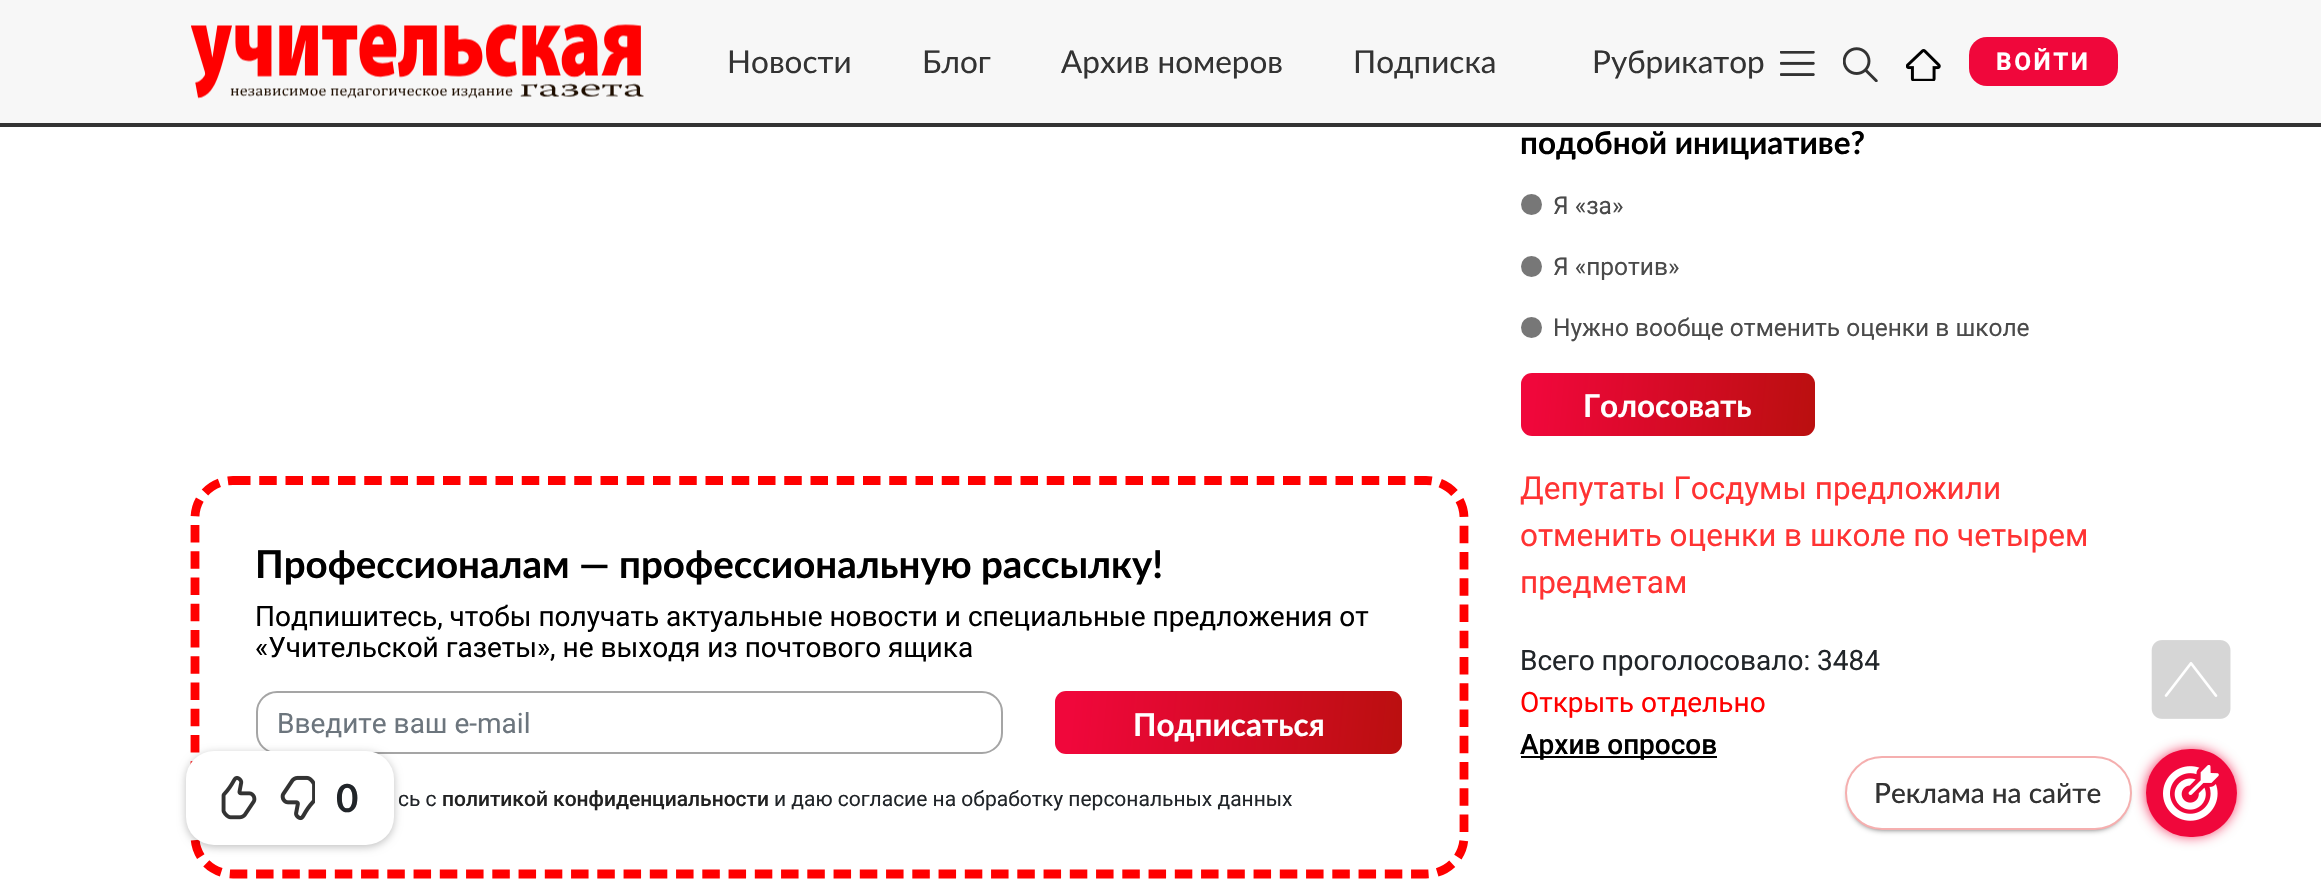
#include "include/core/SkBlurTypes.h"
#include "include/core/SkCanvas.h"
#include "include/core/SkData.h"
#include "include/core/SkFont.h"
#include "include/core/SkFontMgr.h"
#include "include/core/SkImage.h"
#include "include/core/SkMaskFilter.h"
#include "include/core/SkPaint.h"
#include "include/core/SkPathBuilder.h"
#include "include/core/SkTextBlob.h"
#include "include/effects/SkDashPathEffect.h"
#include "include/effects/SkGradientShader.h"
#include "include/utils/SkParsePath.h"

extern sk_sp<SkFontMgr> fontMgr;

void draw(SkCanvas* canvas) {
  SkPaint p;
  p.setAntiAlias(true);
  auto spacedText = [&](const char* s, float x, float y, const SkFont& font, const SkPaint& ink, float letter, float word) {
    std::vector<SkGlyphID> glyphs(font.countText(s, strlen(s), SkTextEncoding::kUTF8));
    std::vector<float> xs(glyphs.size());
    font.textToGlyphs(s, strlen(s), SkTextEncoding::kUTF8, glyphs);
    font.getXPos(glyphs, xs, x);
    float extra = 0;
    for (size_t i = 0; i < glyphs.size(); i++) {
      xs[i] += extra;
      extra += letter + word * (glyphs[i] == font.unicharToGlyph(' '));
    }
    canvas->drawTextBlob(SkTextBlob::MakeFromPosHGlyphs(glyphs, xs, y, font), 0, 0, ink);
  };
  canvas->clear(SK_ColorWHITE);
  p.setColor(SkColorSetRGB(247, 247, 247));
  canvas->drawRect(SkRect::MakeLTRB(0, 0, 2321, 123), p);
  p.setColor(SkColorSetRGB(51, 51, 51));
  canvas->drawRect(SkRect::MakeLTRB(0, 123, 2321, 127), p);
  canvas->drawImageRect(SkImages::DeferredFromEncodedData(SkData::MakeFromFileName("images/1.png")), SkRect::MakeLTRB(191, 24, 644, 99), SkSamplingOptions());
  canvas->drawImageRect(SkImages::DeferredFromEncodedData(SkData::MakeFromFileName("images/2.png")), SkRect::MakeLTRB(1780, 51, 1815, 76), SkSamplingOptions());
  canvas->drawImageRect(SkImages::DeferredFromEncodedData(SkData::MakeFromFileName("images/3.png")), SkRect::MakeLTRB(1843, 47, 1878, 82), SkSamplingOptions());
  canvas->drawImageRect(SkImages::DeferredFromEncodedData(SkData::MakeFromFileName("images/4.png")), SkRect::MakeLTRB(1906, 49, 1941, 81), SkSamplingOptions());
  p.setColor(SkColorSetRGB(240, 7, 59));
  canvas->drawRoundRect(SkRect::MakeLTRB(1969, 37, 2118, 86), 18, 18, p);
  p.setStyle(SkPaint::kStroke_Style);
  p.setStrokeWidth(8.8f);
  p.setColor(SkColorSetRGB(255, 0, 0));
  p.setPathEffect(SkDashPathEffect::Make({{17.5f, 8.75f}}, 0));
  canvas->drawPath(SkPathBuilder().moveTo(233, 480.5f).lineTo(1426, 480.5f).cubicTo(1447, 480.5f, 1464, 497, 1464, 518).lineTo(1464, 836.5f).cubicTo(1464, 857.5f, 1447, 874, 1426, 874).lineTo(233, 874).cubicTo(212, 874, 195, 857.5f, 195, 836.5f).lineTo(195, 518).cubicTo(195, 497, 212, 480.5f, 233, 480.5f).close().detach(), p);
  p.setPathEffect(nullptr);
  p.setStrokeWidth(2);
  p.setColor(SkColorSetRGB(165, 165, 165));
  canvas->drawRoundRect(SkRect::MakeLTRB(257, 692, 1002, 753), 20, 20, p);
  p.setStyle(SkPaint::kFill_Style);
  {
    const SkColor colors[] = {SkColorSetRGB(240, 7, 59), SkColorSetRGB(186, 15, 15)};
    const float stops[] = {0.05f, 1};
    const SkPoint ends[] = {{1054, 706}, {1403, 739}};
    p.setShader(SkGradientShader::MakeLinear(ends, colors, stops, 2, SkTileMode::kClamp));
    p.setAlpha(255);
  }
  canvas->drawRoundRect(SkRect::MakeLTRB(1055, 691, 1402, 754), 11, 11, p);
  p.setShader(nullptr);
  p.setColor(SkColorSetRGB(119, 119, 119));
  canvas->drawCircle(1531.5f, 204.5f, 10.5f, p);
  canvas->drawCircle(1531.5f, 266.5f, 10.5f, p);
  canvas->drawCircle(1531.5f, 327.5f, 10.5f, p);
  {
    const SkColor colors[] = {SkColorSetRGB(240, 7, 59), SkColorSetRGB(186, 15, 15)};
    const float stops[] = {0.05f, 1};
    const SkPoint ends[] = {{1519, 390}, {1816, 418}};
    p.setShader(SkGradientShader::MakeLinear(ends, colors, stops, 2, SkTileMode::kClamp));
    p.setAlpha(255);
  }
  canvas->drawRoundRect(SkRect::MakeLTRB(1521, 373, 1815, 436), 11, 11, p);
  p.setShader(nullptr);
  p.setColor(SK_ColorBLACK);
  canvas->drawRect(SkRect::MakeLTRB(1521, 756, 1717, 758), p);
  p.setColor(SkColorSetARGB(64, 0, 0, 0));
  p.setMaskFilter(SkMaskFilter::MakeBlur(kNormal_SkBlurStyle, 4.5f));
  canvas->drawRoundRect(SkRect::MakeLTRB(186, 753, 394, 847), 28, 28, p);
  p.setMaskFilter(nullptr);
  p.setColor(SK_ColorWHITE);
  canvas->drawRoundRect(SkRect::MakeLTRB(186, 751, 394, 845), 28, 28, p);
  canvas->drawImageRect(SkImages::DeferredFromEncodedData(SkData::MakeFromFileName("images/5.png")), SkRect::MakeLTRB(221, 775, 257, 820), SkSamplingOptions());
  canvas->drawImageRect(SkImages::DeferredFromEncodedData(SkData::MakeFromFileName("images/6.png")), SkRect::MakeLTRB(280, 775, 315, 821), SkSamplingOptions());
  canvas->drawImageRect(SkImages::DeferredFromEncodedData(SkData::MakeFromFileName("images/7.png")), SkRect::MakeLTRB(2151, 640, 2231, 719), SkSamplingOptions());
  p.setColor(SkColorSetRGB(240, 7, 59));
  p.setMaskFilter(SkMaskFilter::MakeBlur(kNormal_SkBlurStyle, 7));
  canvas->drawRoundRect(SkRect::MakeLTRB(2147, 751, 2235, 835), 42, 42, p);
  p.setMaskFilter(nullptr);
  canvas->drawRoundRect(SkRect::MakeLTRB(2146, 749, 2237, 837), 44, 44, p);
  p.setColor(SK_ColorBLACK);
  p.setMaskFilter(SkMaskFilter::MakeBlur(kNormal_SkBlurStyle, 3.5f));
  canvas->drawRoundRect(SkRect::MakeLTRB(1850, 765, 2126, 828), 31.5f, 31.5f, p);
  p.setMaskFilter(nullptr);
  p.setColor(SK_ColorWHITE);
  canvas->drawRoundRect(SkRect::MakeLTRB(1846, 757, 2131, 829), 36, 36, p);
  p.setStyle(SkPaint::kStroke_Style);
  p.setColor(SkColorSetRGB(245, 175, 175));
  canvas->drawRoundRect(SkRect::MakeLTRB(1846, 757, 2131, 829), 36, 36, p);
  canvas->drawImageRect(SkImages::DeferredFromEncodedData(SkData::MakeFromFileName("images/8.png")), SkRect::MakeLTRB(2163, 765, 2219, 821), SkSamplingOptions());
  SkFont font1(fontMgr->matchFamilyStyle("Lato", SkFontStyle::Normal()), 31.5f);
  font1.setSubpixel(true);
  p.setStyle(SkPaint::kFill_Style);
  p.setColor(SkColorSetRGB(51, 51, 51));
  canvas->drawString("Новости", 727, 73, font1, p);
  canvas->drawString("Блог", 922, 73, font1, p);
  canvas->drawString("Архив номеров", 1061, 73, font1, p);
  canvas->drawString("Подписка", 1353, 73, font1, p);
  canvas->drawString("Рубрикатор", 1592, 73, font1, p);
  SkFont font2(fontMgr->matchFamilyStyle("Roboto", SkFontStyle::Bold()), 24.5f);
  font2.setSubpixel(true);
  p.setColor(SK_ColorWHITE);
  spacedText("ВОЙТИ", 1996, 70, font2, p, 2.5f, 0);
  SkFont font3(fontMgr->matchFamilyStyle("Lato", SkFontStyle::Bold()), 38.5f);
  font3.setSubpixel(true);
  p.setColor(SK_ColorBLACK);
  canvas->drawString("Профессионалам — профессиональную рассылку!", 255, 578, font3, p);
  SkFont font4(fontMgr->matchFamilyStyle("Roboto", SkFontStyle::Normal()), 28);
  font4.setSubpixel(true);
  canvas->drawString("Подпишитесь, чтобы получать актуальные новости и специальные предложения от", 255, 626, font4, p);
  canvas->drawString("«Учительской газеты», не выходя из почтового ящика", 255, 657, font4, p);
  p.setColor(SkColorSetRGB(108, 117, 125));
  canvas->drawString("Введите ваш e-mail", 277, 733, font4, p);
  SkFont font5(fontMgr->matchFamilyStyle("Lato", SkFontStyle::Bold()), 31.5f);
  font5.setSubpixel(true);
  p.setColor(SK_ColorWHITE);
  canvas->drawString("Подписаться", 1133, 736, font5, p);
  SkFont font6(fontMgr->matchFamilyStyle("Roboto", SkFontStyle::Normal()), 21);
  font6.setSubpixel(true);
  p.setColor(SkColorSetRGB(33, 37, 41));
  canvas->drawString("сь с", 398, 806, font6, p);
  SkFont font7(fontMgr->matchFamilyStyle("Roboto", SkFontStyle(500, SkFontStyle::kNormal_Width, SkFontStyle::kUpright_Slant)), 21);
  font7.setSubpixel(true);
  p.setColor(SkColorSetRGB(34, 34, 34));
  canvas->drawString("политикой конфиденциальности", 442, 806, font7, p);
  p.setColor(SkColorSetRGB(33, 37, 41));
  canvas->drawString("и даю согласие на обработку персональных данных", 774, 806, font6, p);
  p.setColor(SK_ColorBLACK);
  canvas->drawString("подобной инициативе?", 1520, 154, font5, p);
  SkFont font8(fontMgr->matchFamilyStyle("Roboto", SkFontStyle::Normal()), 24.5f);
  font8.setSubpixel(true);
  p.setColor(SkColorSetRGB(74, 74, 74));
  canvas->drawString("Я «за»", 1553, 214, font8, p);
  canvas->drawString("Я «против»", 1553, 275, font8, p);
  canvas->drawString("Нужно вообще отменить оценки в школе", 1553, 336, font8, p);
  p.setColor(SK_ColorWHITE);
  canvas->drawString("Голосовать", 1583, 417, font5, p);
  SkFont font9(fontMgr->matchFamilyStyle("Roboto", SkFontStyle::Normal()), 31.5f);
  font9.setSubpixel(true);
  p.setColor(SkColorSetRGB(255, 51, 51));
  canvas->drawString("Депутаты Госдумы предложили", 1520, 499, font9, p);
  canvas->drawString("отменить оценки в школе по четырем", 1520, 546, font9, p);
  canvas->drawString("предметам", 1520, 593, font9, p);
  p.setColor(SkColorSetRGB(33, 37, 41));
  canvas->drawString("Всего проголосовало: 3484", 1520, 670, font4, p);
  p.setColor(SkColorSetRGB(255, 0, 0));
  canvas->drawString("Открыть отдельно", 1520, 712, font4, p);
  SkFont font10(fontMgr->matchFamilyStyle("Roboto", SkFontStyle(500, SkFontStyle::kNormal_Width, SkFontStyle::kUpright_Slant)), 28);
  font10.setSubpixel(true);
  p.setColor(SK_ColorBLACK);
  canvas->drawString("Архив опросов", 1520, 754, font10, p);
  p.setColor(SkColorSetRGB(33, 37, 41));
  canvas->drawString("0", 336, 812, font3, p);
  SkFont font11(fontMgr->matchFamilyStyle("Lato", SkFontStyle(500, SkFontStyle::kNormal_Width, SkFontStyle::kUpright_Slant)), 28);
  font11.setSubpixel(true);
  p.setColor(SkColorSetRGB(51, 51, 51));
  canvas->drawString("Реклама на сайте", 1874, 803, font11, p);
}
